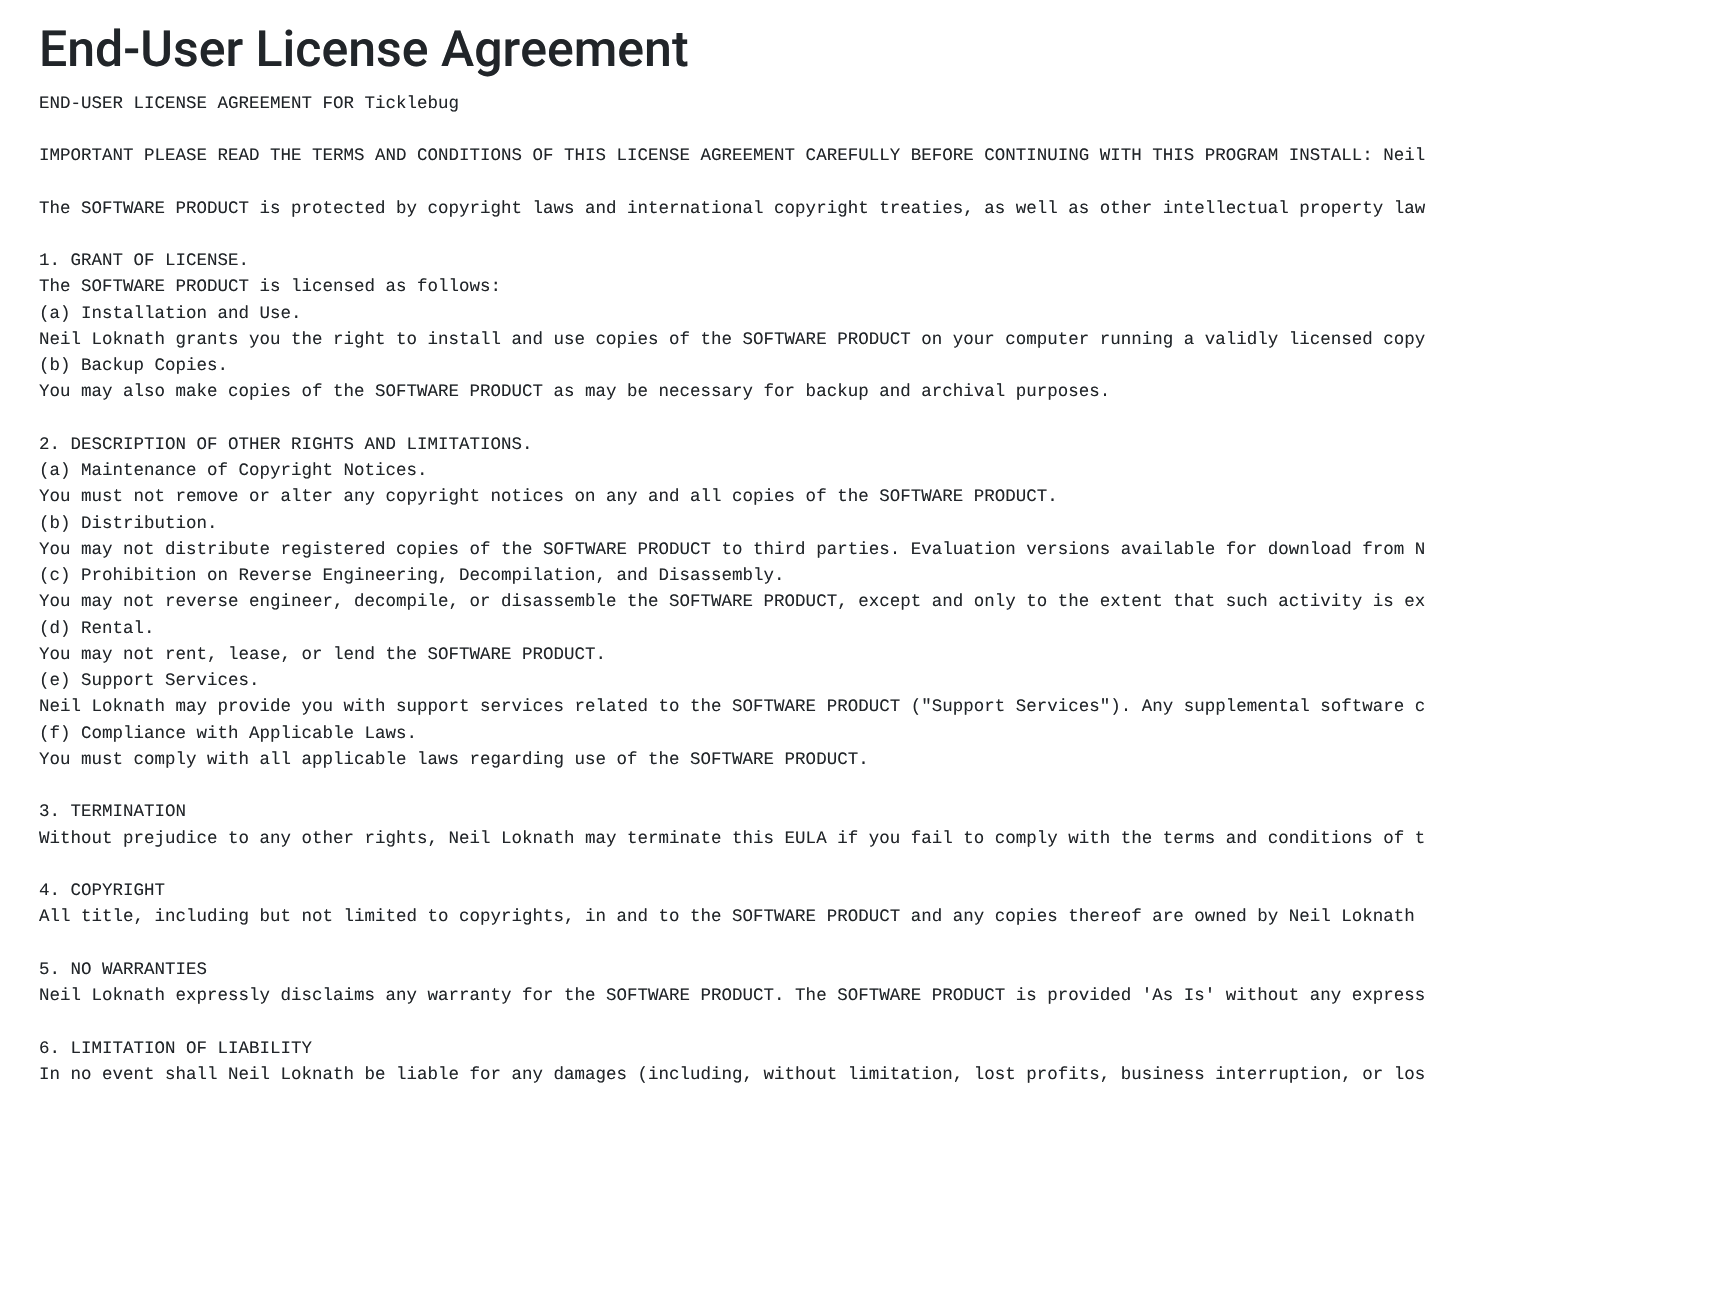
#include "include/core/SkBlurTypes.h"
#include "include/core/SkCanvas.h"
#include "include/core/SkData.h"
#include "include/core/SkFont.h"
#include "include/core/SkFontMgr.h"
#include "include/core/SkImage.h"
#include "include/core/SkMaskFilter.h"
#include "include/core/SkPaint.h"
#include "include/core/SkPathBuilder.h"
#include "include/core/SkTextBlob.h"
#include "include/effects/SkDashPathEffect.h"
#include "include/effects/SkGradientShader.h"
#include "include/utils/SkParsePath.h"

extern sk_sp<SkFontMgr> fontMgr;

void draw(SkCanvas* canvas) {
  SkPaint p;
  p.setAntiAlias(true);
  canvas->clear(SK_ColorWHITE);
  SkFont font1(fontMgr->matchFamilyStyle("Roboto", SkFontStyle(500, SkFontStyle::kNormal_Width, SkFontStyle::kUpright_Slant)), 50);
  font1.setSubpixel(true);
  p.setColor(SkColorSetRGB(33, 37, 41));
  canvas->drawString("End-User License Agreement", 39, 66, font1, p);
  SkFont font2(fontMgr->matchFamilyStyle("Liberation Mono", SkFontStyle::Normal()), 17.5f);
  font2.setSubpixel(true);
  canvas->drawString("END-USER LICENSE AGREEMENT FOR Ticklebug", 39, 108, font2, p);
  canvas->drawString("IMPORTANT PLEASE READ THE TERMS AND CONDITIONS OF THIS LICENSE AGREEMENT CAREFULLY BEFORE CONTINUING WITH THIS PROGRAM INSTALL: Neil", 39, 160, font2, p);
  canvas->drawString("The SOFTWARE PRODUCT is protected by copyright laws and international copyright treaties, as well as other intellectual property law", 39, 213, font2, p);
  canvas->drawString("1. GRANT OF LICENSE.", 39, 265, font2, p);
  canvas->drawString("The SOFTWARE PRODUCT is licensed as follows:", 39, 291, font2, p);
  canvas->drawString("(a) Installation and Use.", 39, 318, font2, p);
  canvas->drawString("Neil Loknath grants you the right to install and use copies of the SOFTWARE PRODUCT on your computer running a validly licensed copy", 39, 344, font2, p);
  canvas->drawString("(b) Backup Copies.", 39, 370, font2, p);
  canvas->drawString("You may also make copies of the SOFTWARE PRODUCT as may be necessary for backup and archival purposes.", 39, 396, font2, p);
  canvas->drawString("2. DESCRIPTION OF OTHER RIGHTS AND LIMITATIONS.", 39, 449, font2, p);
  canvas->drawString("(a) Maintenance of Copyright Notices.", 39, 475, font2, p);
  canvas->drawString("You must not remove or alter any copyright notices on any and all copies of the SOFTWARE PRODUCT.", 39, 501, font2, p);
  canvas->drawString("(b) Distribution.", 39, 528, font2, p);
  canvas->drawString("You may not distribute registered copies of the SOFTWARE PRODUCT to third parties. Evaluation versions available for download from N", 39, 554, font2, p);
  canvas->drawString("(c) Prohibition on Reverse Engineering, Decompilation, and Disassembly.", 39, 580, font2, p);
  canvas->drawString("You may not reverse engineer, decompile, or disassemble the SOFTWARE PRODUCT, except and only to the extent that such activity is ex", 39, 606, font2, p);
  canvas->drawString("(d) Rental.", 39, 633, font2, p);
  canvas->drawString("You may not rent, lease, or lend the SOFTWARE PRODUCT.", 39, 659, font2, p);
  canvas->drawString("(e) Support Services.", 39, 685, font2, p);
  canvas->drawString("Neil Loknath may provide you with support services related to the SOFTWARE PRODUCT (\"Support Services\"). Any supplemental software c", 39, 711, font2, p);
  canvas->drawString("(f) Compliance with Applicable Laws.", 39, 738, font2, p);
  canvas->drawString("You must comply with all applicable laws regarding use of the SOFTWARE PRODUCT.", 39, 764, font2, p);
  canvas->drawString("3. TERMINATION", 39, 816, font2, p);
  canvas->drawString("Without prejudice to any other rights, Neil Loknath may terminate this EULA if you fail to comply with the terms and conditions of t", 39, 843, font2, p);
  canvas->drawString("4. COPYRIGHT", 39, 895, font2, p);
  canvas->drawString("All title, including but not limited to copyrights, in and to the SOFTWARE PRODUCT and any copies thereof are owned by Neil Loknath", 39, 921, font2, p);
  canvas->drawString("5. NO WARRANTIES", 39, 974, font2, p);
  canvas->drawString("Neil Loknath expressly disclaims any warranty for the SOFTWARE PRODUCT. The SOFTWARE PRODUCT is provided 'As Is' without any express", 39, 1000, font2, p);
  canvas->drawString("6. LIMITATION OF LIABILITY", 39, 1053, font2, p);
  canvas->drawString("In no event shall Neil Loknath be liable for any damages (including, without limitation, lost profits, business interruption, or los", 39, 1079, font2, p);
}
